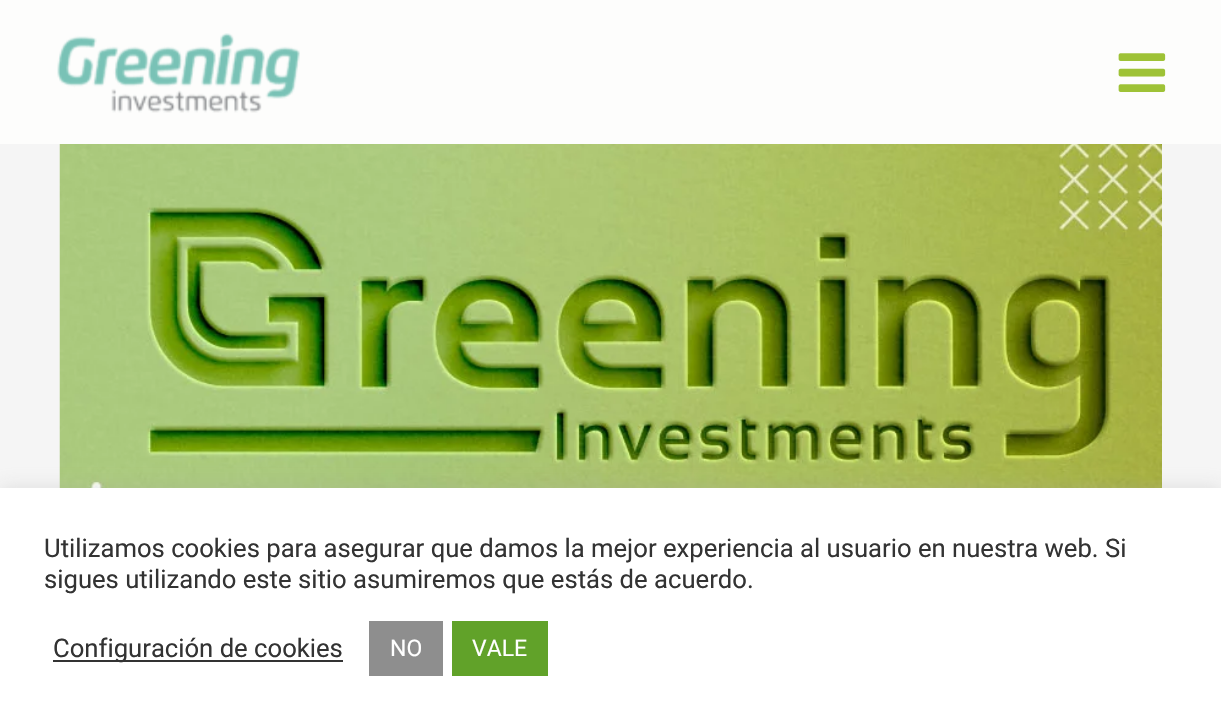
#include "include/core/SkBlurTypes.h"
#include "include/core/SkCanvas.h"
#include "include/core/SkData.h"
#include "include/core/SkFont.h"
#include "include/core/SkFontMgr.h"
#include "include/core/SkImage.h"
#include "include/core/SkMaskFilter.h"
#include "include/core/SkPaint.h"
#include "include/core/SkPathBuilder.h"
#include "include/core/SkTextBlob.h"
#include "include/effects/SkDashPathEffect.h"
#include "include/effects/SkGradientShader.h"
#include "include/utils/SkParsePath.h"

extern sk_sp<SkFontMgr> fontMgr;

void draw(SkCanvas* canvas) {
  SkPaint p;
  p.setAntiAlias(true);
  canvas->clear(SkColorSetRGB(245, 245, 245));
  p.setColor(SkColorSetRGB(253, 253, 252));
  canvas->drawRect(SkRect::MakeLTRB(0, 0, 1221, 144), p);
  canvas->drawImageRect(SkImages::DeferredFromEncodedData(SkData::MakeFromFileName("images/1.png")), SkRect::MakeLTRB(57, 33, 300, 113), SkSamplingOptions());
  canvas->drawImageRect(SkImages::DeferredFromEncodedData(SkData::MakeFromFileName("images/2.png")), SkRect::MakeLTRB(1118, 53, 1166, 92), SkSamplingOptions());
  canvas->drawImageRect(SkImages::DeferredFromEncodedData(SkData::MakeFromFileName("images/3.png")), SkRect::MakeLTRB(59, 144, 1162, 488), SkSamplingOptions());
  p.setColor(SkColorSetARGB(77, 172, 171, 171));
  p.setMaskFilter(SkMaskFilter::MakeBlur(kNormal_SkBlurStyle, 9));
  canvas->drawRect(SkRect::MakeLTRB(0, 487, 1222, 726), p);
  p.setMaskFilter(nullptr);
  p.setColor(SK_ColorWHITE);
  canvas->drawRect(SkRect::MakeLTRB(0, 488, 1221, 727), p);
  p.setColor(SkColorSetRGB(51, 51, 51));
  canvas->drawRect(SkRect::MakeLTRB(53, 660, 343, 662), p);
  p.setColor(SkColorSetRGB(142, 142, 142));
  canvas->drawRect(SkRect::MakeLTRB(369, 621, 443, 676), p);
  p.setColor(SkColorSetRGB(97, 162, 41));
  canvas->drawRect(SkRect::MakeLTRB(452, 621, 548, 676), p);
  SkFont font1(fontMgr->matchFamilyStyle("Roboto", SkFontStyle::Normal()), 25.65f);
  font1.setSubpixel(true);
  p.setColor(SkColorSetRGB(51, 51, 51));
  canvas->drawString("Utilizamos cookies para asegurar que damos la mejor experiencia al usuario en nuestra web. Si", 44, 557, font1, p);
  canvas->drawString("sigues utilizando este sitio asumiremos que estás de acuerdo.", 44, 588, font1, p);
  canvas->drawString("Configuración de cookies", 53, 657, font1, p);
  SkFont font2(fontMgr->matchFamilyStyle("Roboto", SkFontStyle::Normal()), 23);
  font2.setSubpixel(true);
  p.setColor(SK_ColorWHITE);
  canvas->drawString("NO", 390, 656, font2, p);
  canvas->drawString("VALE", 472, 656, font2, p);
}
